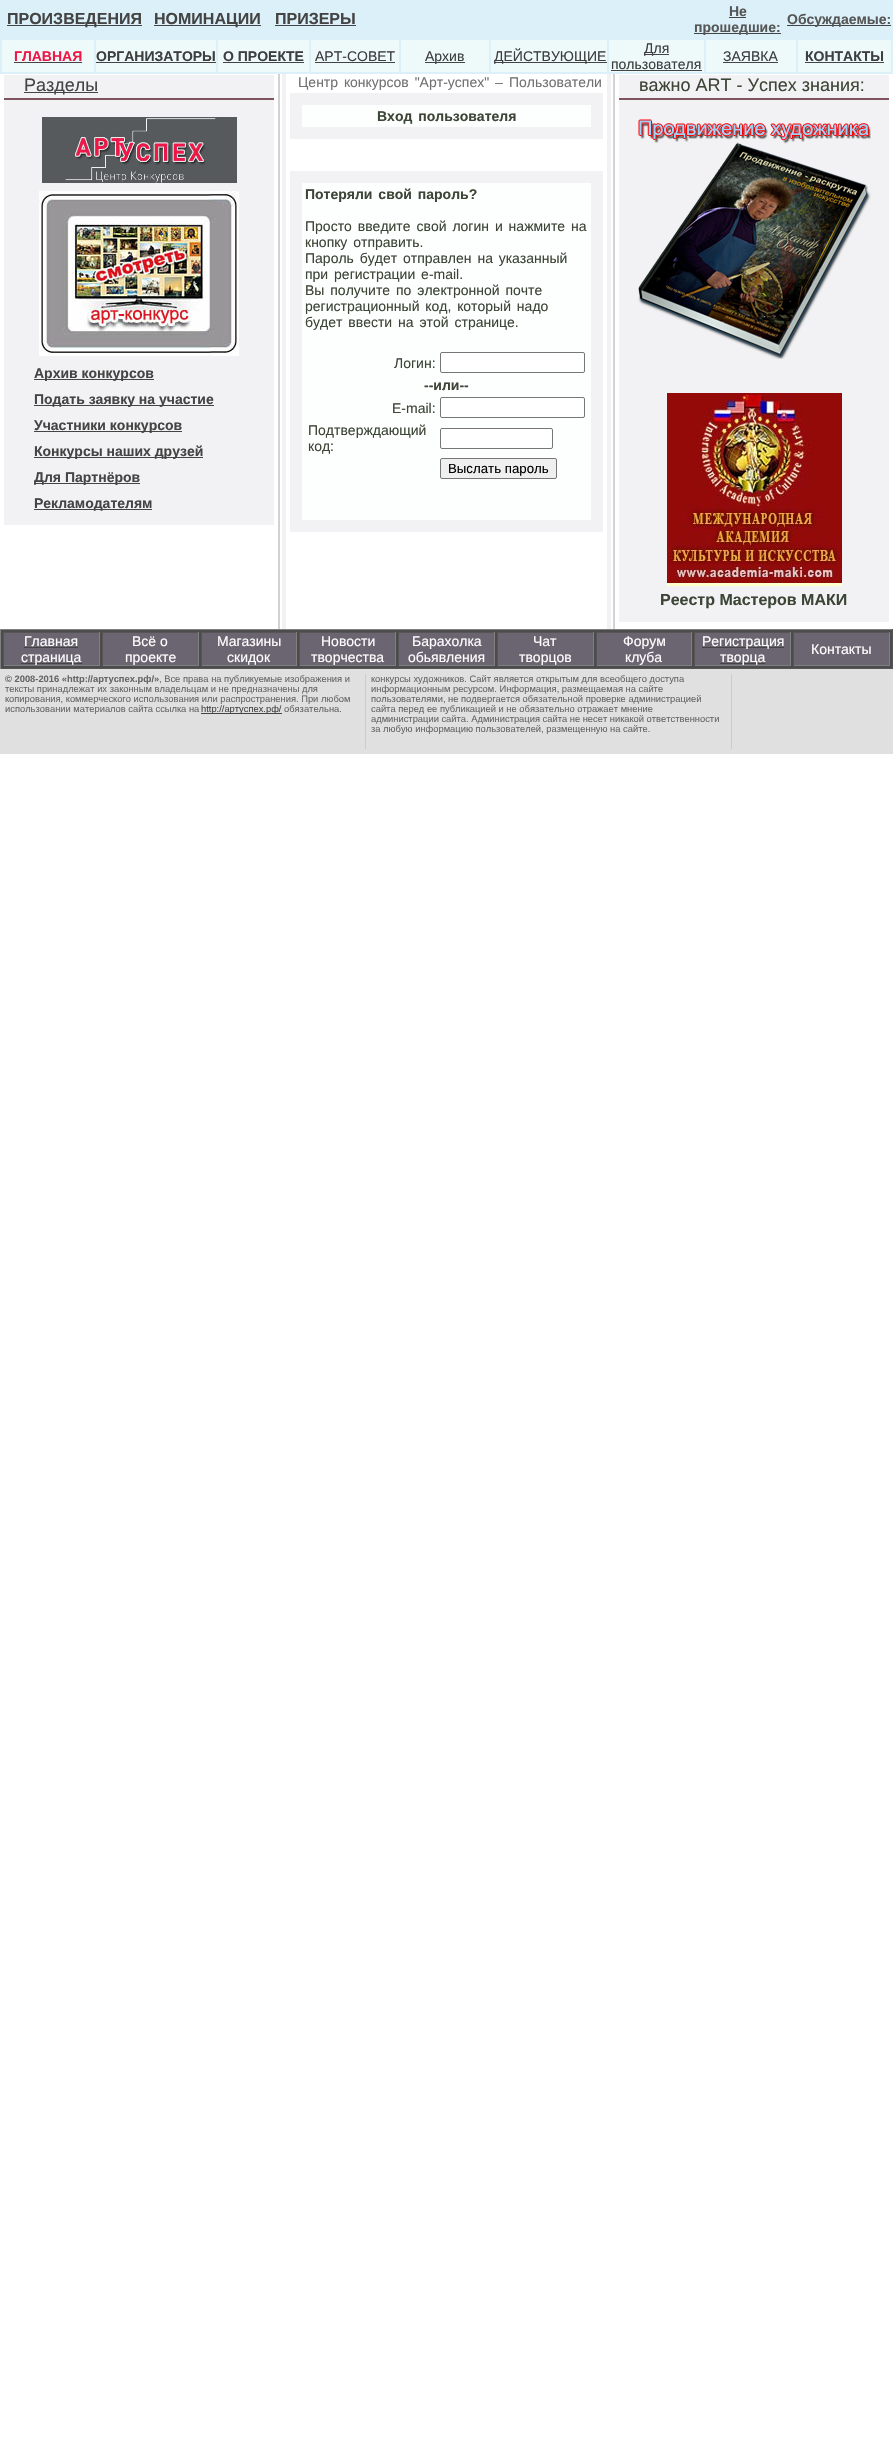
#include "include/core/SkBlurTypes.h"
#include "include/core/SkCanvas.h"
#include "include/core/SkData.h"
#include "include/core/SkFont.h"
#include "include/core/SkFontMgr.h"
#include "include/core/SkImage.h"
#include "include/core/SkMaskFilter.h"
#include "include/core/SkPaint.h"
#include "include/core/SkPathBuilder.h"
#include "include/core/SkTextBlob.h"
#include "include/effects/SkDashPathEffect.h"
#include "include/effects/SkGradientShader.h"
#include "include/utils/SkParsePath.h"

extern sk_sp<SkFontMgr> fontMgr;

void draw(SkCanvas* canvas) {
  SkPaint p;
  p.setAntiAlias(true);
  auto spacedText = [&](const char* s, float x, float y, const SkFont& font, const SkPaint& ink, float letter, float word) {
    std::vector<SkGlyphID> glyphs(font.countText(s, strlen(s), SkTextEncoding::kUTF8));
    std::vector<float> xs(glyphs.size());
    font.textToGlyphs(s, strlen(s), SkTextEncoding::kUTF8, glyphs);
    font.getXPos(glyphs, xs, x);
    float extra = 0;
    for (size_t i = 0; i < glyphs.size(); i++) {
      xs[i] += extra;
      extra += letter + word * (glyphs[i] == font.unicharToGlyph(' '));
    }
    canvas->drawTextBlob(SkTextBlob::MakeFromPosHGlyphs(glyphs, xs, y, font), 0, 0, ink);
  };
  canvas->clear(SK_ColorWHITE);
  p.setColor(SkColorSetRGB(219, 240, 248));
  canvas->drawRect(SkRect::MakeLTRB(0, 0, 893, 74), p);
  p.setColor(SkColorSetRGB(68, 68, 68));
  canvas->drawRect(SkRect::MakeLTRB(7, 25, 142, 26), p);
  canvas->drawRect(SkRect::MakeLTRB(154, 25, 261, 26), p);
  canvas->drawRect(SkRect::MakeLTRB(275, 25, 356, 26), p);
  canvas->drawRect(SkRect::MakeLTRB(729, 17, 746, 18), p);
  canvas->drawRect(SkRect::MakeLTRB(694, 33, 781, 34), p);
  canvas->drawRect(SkRect::MakeLTRB(787, 25, 891, 26), p);
  p.setColor(SkColorSetRGB(237, 250, 249));
  canvas->drawRect(SkRect::MakeLTRB(2, 40, 94, 72), p);
  p.setColor(SkColorSetRGB(68, 68, 68));
  canvas->drawRect(SkRect::MakeLTRB(14, 62, 82, 63), p);
  p.setColor(SkColorSetRGB(237, 250, 249));
  canvas->drawRect(SkRect::MakeLTRB(96, 40, 216, 72), p);
  p.setColor(SkColorSetRGB(68, 68, 68));
  canvas->drawRect(SkRect::MakeLTRB(96, 62, 216, 63), p);
  p.setColor(SkColorSetRGB(237, 250, 249));
  canvas->drawRect(SkRect::MakeLTRB(218, 40, 309, 72), p);
  p.setColor(SkColorSetRGB(68, 68, 68));
  canvas->drawRect(SkRect::MakeLTRB(223, 62, 304, 63), p);
  p.setColor(SkColorSetRGB(237, 250, 249));
  canvas->drawRect(SkRect::MakeLTRB(311, 40, 399, 72), p);
  p.setColor(SkColorSetRGB(68, 68, 68));
  canvas->drawRect(SkRect::MakeLTRB(315, 62, 395, 63), p);
  p.setColor(SkColorSetRGB(237, 250, 249));
  canvas->drawRect(SkRect::MakeLTRB(401, 40, 489, 72), p);
  p.setColor(SkColorSetRGB(68, 68, 68));
  canvas->drawRect(SkRect::MakeLTRB(425, 62, 465, 63), p);
  p.setColor(SkColorSetRGB(237, 250, 249));
  canvas->drawRect(SkRect::MakeLTRB(491, 40, 607, 72), p);
  p.setColor(SkColorSetRGB(68, 68, 68));
  canvas->drawRect(SkRect::MakeLTRB(494, 62, 607, 63), p);
  p.setColor(SkColorSetRGB(237, 250, 249));
  canvas->drawRect(SkRect::MakeLTRB(609, 40, 704, 72), p);
  p.setColor(SkColorSetRGB(68, 68, 68));
  canvas->drawRect(SkRect::MakeLTRB(644, 54, 669, 55), p);
  canvas->drawRect(SkRect::MakeLTRB(611, 70, 702, 71), p);
  p.setColor(SkColorSetRGB(237, 250, 249));
  canvas->drawRect(SkRect::MakeLTRB(706, 40, 796, 72), p);
  p.setColor(SkColorSetRGB(68, 68, 68));
  canvas->drawRect(SkRect::MakeLTRB(723, 62, 778, 63), p);
  p.setColor(SkColorSetRGB(237, 250, 249));
  canvas->drawRect(SkRect::MakeLTRB(798, 40, 891, 72), p);
  p.setColor(SkColorSetRGB(68, 68, 68));
  canvas->drawRect(SkRect::MakeLTRB(805, 62, 884, 63), p);
  p.setColor(SkColorSetRGB(242, 242, 244));
  canvas->drawRect(SkRect::MakeLTRB(4, 75, 274, 525), p);
  p.setColor(SkColorSetRGB(68, 68, 68));
  canvas->drawRect(SkRect::MakeLTRB(24, 92, 98, 93), p);
  p.setColor(SkColorSetRGB(128, 84, 94));
  canvas->drawRect(SkRect::MakeLTRB(4, 98, 274, 100), p);
  canvas->drawImageRect(SkImages::DeferredFromEncodedData(SkData::MakeFromFileName("images/1.png")), SkRect::MakeLTRB(42, 117, 237, 183), SkSamplingOptions());
  canvas->drawImageRect(SkImages::DeferredFromEncodedData(SkData::MakeFromFileName("images/2.png")), SkRect::MakeLTRB(39, 191, 239, 356), SkSamplingOptions());
  p.setColor(SkColorSetRGB(68, 68, 68));
  canvas->drawRect(SkRect::MakeLTRB(34, 379, 154, 380), p);
  canvas->drawRect(SkRect::MakeLTRB(34, 405, 214, 406), p);
  canvas->drawRect(SkRect::MakeLTRB(34, 431, 182, 432), p);
  canvas->drawRect(SkRect::MakeLTRB(34, 457, 203, 458), p);
  canvas->drawRect(SkRect::MakeLTRB(34, 483, 140, 484), p);
  canvas->drawRect(SkRect::MakeLTRB(34, 509, 152, 510), p);
  p.setColor(SkColorSetRGB(208, 211, 210));
  canvas->drawRect(SkRect::MakeLTRB(278, 74, 280, 629), p);
  p.setColor(SkColorSetRGB(242, 242, 244));
  canvas->drawRect(SkRect::MakeLTRB(282, 74, 286, 629), p);
  canvas->drawRect(SkRect::MakeLTRB(290, 93, 603, 139), p);
  p.setColor(SkColorSetRGB(252, 255, 254));
  canvas->drawRect(SkRect::MakeLTRB(302, 105, 591, 127), p);
  p.setColor(SkColorSetRGB(242, 242, 244));
  canvas->drawRect(SkRect::MakeLTRB(290, 171, 603, 532), p);
  p.setColor(SkColorSetRGB(252, 255, 254));
  canvas->drawRect(SkRect::MakeLTRB(302, 183, 591, 520), p);
  p.setColor(SK_ColorWHITE);
  canvas->drawRoundRect(SkRect::MakeLTRB(440.5f, 352.5f, 584.5f, 372.5f), 1.5f, 1.5f, p);
  p.setStyle(SkPaint::kStroke_Style);
  p.setStrokeWidth(1);
  p.setColor(SkColorSetRGB(118, 118, 118));
  canvas->drawRoundRect(SkRect::MakeLTRB(440.5f, 352.5f, 584.5f, 372.5f), 1.5f, 1.5f, p);
  p.setStyle(SkPaint::kFill_Style);
  p.setColor(SK_ColorWHITE);
  canvas->drawRoundRect(SkRect::MakeLTRB(440.5f, 397.5f, 584.5f, 417.5f), 1.5f, 1.5f, p);
  p.setStyle(SkPaint::kStroke_Style);
  p.setColor(SkColorSetRGB(118, 118, 118));
  canvas->drawRoundRect(SkRect::MakeLTRB(440.5f, 397.5f, 584.5f, 417.5f), 1.5f, 1.5f, p);
  p.setStyle(SkPaint::kFill_Style);
  p.setColor(SK_ColorWHITE);
  canvas->drawRoundRect(SkRect::MakeLTRB(440.5f, 428.5f, 552.5f, 448.5f), 1.5f, 1.5f, p);
  p.setStyle(SkPaint::kStroke_Style);
  p.setColor(SkColorSetRGB(118, 118, 118));
  canvas->drawRoundRect(SkRect::MakeLTRB(440.5f, 428.5f, 552.5f, 448.5f), 1.5f, 1.5f, p);
  p.setStyle(SkPaint::kFill_Style);
  p.setColor(SkColorSetRGB(239, 239, 239));
  canvas->drawRoundRect(SkRect::MakeLTRB(440.5f, 458.5f, 556.5f, 478.5f), 1.5f, 1.5f, p);
  p.setStyle(SkPaint::kStroke_Style);
  p.setColor(SkColorSetRGB(118, 118, 118));
  canvas->drawRoundRect(SkRect::MakeLTRB(440.5f, 458.5f, 556.5f, 478.5f), 1.5f, 1.5f, p);
  p.setStyle(SkPaint::kFill_Style);
  p.setColor(SkColorSetRGB(242, 242, 244));
  canvas->drawRect(SkRect::MakeLTRB(607, 74, 611, 629), p);
  p.setColor(SkColorSetRGB(208, 211, 210));
  canvas->drawRect(SkRect::MakeLTRB(613, 74, 615, 629), p);
  p.setColor(SkColorSetRGB(242, 242, 244));
  canvas->drawRect(SkRect::MakeLTRB(619, 75, 889, 622), p);
  p.setColor(SkColorSetRGB(128, 84, 94));
  canvas->drawRect(SkRect::MakeLTRB(619, 98, 889, 100), p);
  canvas->drawImageRect(SkImages::DeferredFromEncodedData(SkData::MakeFromFileName("images/3.png")), SkRect::MakeLTRB(638, 119, 871, 359), SkSamplingOptions());
  canvas->drawImageRect(SkImages::DeferredFromEncodedData(SkData::MakeFromFileName("images/4.png")), SkRect::MakeLTRB(667, 393, 842, 583), SkSamplingOptions());
  p.setColor(SkColorSetRGB(255, 255, 204));
  canvas->drawRect(SkRect::MakeLTRB(667, 583, 842, 586), p);
  p.setColor(SkColorSetRGB(76, 76, 76));
  canvas->drawRect(SkRect::MakeLTRB(1, 630, 892, 668), p);
  p.setColor(SkColorSetRGB(128, 128, 128));
  canvas->drawRect(SkRect::MakeLTRB(0, 629, 893, 630), p);
  p.setColor(SkColorSetRGB(85, 85, 85));
  canvas->drawRect(SkRect::MakeLTRB(892, 629, 893, 669), p);
  canvas->drawRect(SkRect::MakeLTRB(0, 668, 893, 669), p);
  p.setColor(SkColorSetRGB(128, 128, 128));
  canvas->drawRect(SkRect::MakeLTRB(0, 629, 1, 669), p);
  p.setColor(SkColorSetRGB(107, 101, 114));
  canvas->drawRect(SkRect::MakeLTRB(4, 633, 99, 665), p);
  p.setColor(SkColorSetRGB(85, 85, 85));
  canvas->drawRect(SkRect::MakeLTRB(3, 632, 100, 633), p);
  p.setColor(SkColorSetRGB(128, 128, 128));
  canvas->drawRect(SkRect::MakeLTRB(99, 632, 100, 666), p);
  canvas->drawRect(SkRect::MakeLTRB(3, 665, 100, 666), p);
  p.setColor(SkColorSetRGB(85, 85, 85));
  canvas->drawRect(SkRect::MakeLTRB(3, 632, 4, 666), p);
  p.setColor(SkColorSetRGB(68, 68, 68));
  canvas->drawRect(SkRect::MakeLTRB(24, 647, 78, 648), p);
  canvas->drawRect(SkRect::MakeLTRB(21, 663, 82, 664), p);
  p.setColor(SkColorSetRGB(107, 101, 114));
  canvas->drawRect(SkRect::MakeLTRB(103, 633, 198, 665), p);
  p.setColor(SkColorSetRGB(85, 85, 85));
  canvas->drawRect(SkRect::MakeLTRB(102, 632, 199, 633), p);
  p.setColor(SkColorSetRGB(128, 128, 128));
  canvas->drawRect(SkRect::MakeLTRB(198, 632, 199, 666), p);
  canvas->drawRect(SkRect::MakeLTRB(102, 665, 199, 666), p);
  p.setColor(SkColorSetRGB(85, 85, 85));
  canvas->drawRect(SkRect::MakeLTRB(102, 632, 103, 666), p);
  p.setColor(SkColorSetRGB(107, 101, 114));
  canvas->drawRect(SkRect::MakeLTRB(202, 633, 296, 665), p);
  p.setColor(SkColorSetRGB(85, 85, 85));
  canvas->drawRect(SkRect::MakeLTRB(201, 632, 297, 633), p);
  p.setColor(SkColorSetRGB(128, 128, 128));
  canvas->drawRect(SkRect::MakeLTRB(296, 632, 297, 666), p);
  canvas->drawRect(SkRect::MakeLTRB(201, 665, 297, 666), p);
  p.setColor(SkColorSetRGB(85, 85, 85));
  canvas->drawRect(SkRect::MakeLTRB(201, 632, 202, 666), p);
  p.setColor(SkColorSetRGB(107, 101, 114));
  canvas->drawRect(SkRect::MakeLTRB(300, 633, 395, 665), p);
  p.setColor(SkColorSetRGB(85, 85, 85));
  canvas->drawRect(SkRect::MakeLTRB(299, 632, 396, 633), p);
  p.setColor(SkColorSetRGB(128, 128, 128));
  canvas->drawRect(SkRect::MakeLTRB(395, 632, 396, 666), p);
  canvas->drawRect(SkRect::MakeLTRB(299, 665, 396, 666), p);
  p.setColor(SkColorSetRGB(85, 85, 85));
  canvas->drawRect(SkRect::MakeLTRB(299, 632, 300, 666), p);
  p.setColor(SkColorSetRGB(107, 101, 114));
  canvas->drawRect(SkRect::MakeLTRB(399, 633, 494, 665), p);
  p.setColor(SkColorSetRGB(85, 85, 85));
  canvas->drawRect(SkRect::MakeLTRB(398, 632, 495, 633), p);
  p.setColor(SkColorSetRGB(128, 128, 128));
  canvas->drawRect(SkRect::MakeLTRB(494, 632, 495, 666), p);
  canvas->drawRect(SkRect::MakeLTRB(398, 665, 495, 666), p);
  p.setColor(SkColorSetRGB(85, 85, 85));
  canvas->drawRect(SkRect::MakeLTRB(398, 632, 399, 666), p);
  p.setColor(SkColorSetRGB(107, 101, 114));
  canvas->drawRect(SkRect::MakeLTRB(498, 633, 593, 665), p);
  p.setColor(SkColorSetRGB(85, 85, 85));
  canvas->drawRect(SkRect::MakeLTRB(497, 632, 594, 633), p);
  p.setColor(SkColorSetRGB(128, 128, 128));
  canvas->drawRect(SkRect::MakeLTRB(593, 632, 594, 666), p);
  canvas->drawRect(SkRect::MakeLTRB(497, 665, 594, 666), p);
  p.setColor(SkColorSetRGB(85, 85, 85));
  canvas->drawRect(SkRect::MakeLTRB(497, 632, 498, 666), p);
  p.setColor(SkColorSetRGB(107, 101, 114));
  canvas->drawRect(SkRect::MakeLTRB(597, 633, 691, 665), p);
  p.setColor(SkColorSetRGB(85, 85, 85));
  canvas->drawRect(SkRect::MakeLTRB(596, 632, 692, 633), p);
  p.setColor(SkColorSetRGB(128, 128, 128));
  canvas->drawRect(SkRect::MakeLTRB(691, 632, 692, 666), p);
  canvas->drawRect(SkRect::MakeLTRB(596, 665, 692, 666), p);
  p.setColor(SkColorSetRGB(85, 85, 85));
  canvas->drawRect(SkRect::MakeLTRB(596, 632, 597, 666), p);
  p.setColor(SkColorSetRGB(107, 101, 114));
  canvas->drawRect(SkRect::MakeLTRB(695, 633, 790, 665), p);
  p.setColor(SkColorSetRGB(85, 85, 85));
  canvas->drawRect(SkRect::MakeLTRB(694, 632, 791, 633), p);
  p.setColor(SkColorSetRGB(128, 128, 128));
  canvas->drawRect(SkRect::MakeLTRB(790, 632, 791, 666), p);
  canvas->drawRect(SkRect::MakeLTRB(694, 665, 791, 666), p);
  p.setColor(SkColorSetRGB(85, 85, 85));
  canvas->drawRect(SkRect::MakeLTRB(694, 632, 695, 666), p);
  p.setColor(SkColorSetRGB(68, 68, 68));
  canvas->drawRect(SkRect::MakeLTRB(702, 647, 784, 648), p);
  canvas->drawRect(SkRect::MakeLTRB(720, 663, 765, 664), p);
  p.setColor(SkColorSetRGB(107, 101, 114));
  canvas->drawRect(SkRect::MakeLTRB(794, 633, 889, 665), p);
  p.setColor(SkColorSetRGB(85, 85, 85));
  canvas->drawRect(SkRect::MakeLTRB(793, 632, 890, 633), p);
  p.setColor(SkColorSetRGB(128, 128, 128));
  canvas->drawRect(SkRect::MakeLTRB(889, 632, 890, 666), p);
  canvas->drawRect(SkRect::MakeLTRB(793, 665, 890, 666), p);
  p.setColor(SkColorSetRGB(85, 85, 85));
  canvas->drawRect(SkRect::MakeLTRB(793, 632, 794, 666), p);
  p.setColor(SkColorSetRGB(224, 224, 224));
  canvas->drawRect(SkRect::MakeLTRB(0, 669, 893, 754), p);
  p.setColor(SkColorSetRGB(204, 204, 204));
  canvas->drawRect(SkRect::MakeLTRB(365, 674, 366, 749), p);
  p.setColor(SkColorSetRGB(68, 68, 68));
  canvas->drawRect(SkRect::MakeLTRB(201, 713, 282, 714), p);
  p.setColor(SkColorSetRGB(204, 204, 204));
  canvas->drawRect(SkRect::MakeLTRB(731, 674, 732, 749), p);
  SkFont font1(fontMgr->matchFamilyStyle("Liberation Sans", SkFontStyle::Bold()), 16);
  font1.setSubpixel(true);
  p.setColor(SkColorSetRGB(68, 68, 68));
  canvas->drawString("ПРОИЗВЕДЕНИЯ", 7, 24, font1, p);
  canvas->drawString("НОМИНАЦИИ", 154, 24, font1, p);
  canvas->drawString("ПРИЗЕРЫ", 275, 24, font1, p);
  SkFont font2(fontMgr->matchFamilyStyle("Liberation Sans", SkFontStyle::Bold()), 14);
  font2.setSubpixel(true);
  p.setColor(SkColorSetRGB(86, 86, 86));
  canvas->drawString("Не", 729, 16, font2, p);
  canvas->drawString("прошедшие:", 694, 32, font2, p);
  canvas->drawString("Обсуждаемые:", 787, 24, font2, p);
  p.setColor(SkColorSetRGB(237, 24, 71));
  canvas->drawString("ГЛАВНАЯ", 14, 61, font2, p);
  p.setColor(SkColorSetRGB(62, 62, 62));
  canvas->drawString("ОРГАНИЗАТОРЫ", 96, 61, font2, p);
  canvas->drawString("О ПРОЕКТЕ", 223, 61, font2, p);
  SkFont font3(fontMgr->matchFamilyStyle("Liberation Sans", SkFontStyle::Normal()), 14);
  font3.setSubpixel(true);
  canvas->drawString("АРТ-СОВЕТ", 315, 61, font3, p);
  canvas->drawString("Архив", 425, 61, font3, p);
  canvas->drawString("ДЕЙСТВУЮЩИЕ", 494, 61, font3, p);
  canvas->drawString("Для", 644, 53, font3, p);
  canvas->drawString("пользователя", 611, 69, font3, p);
  canvas->drawString("ЗАЯВКА", 723, 61, font3, p);
  canvas->drawString("КОНТАКТЫ", 805, 61, font2, p);
  SkFont font4(fontMgr->matchFamilyStyle("Liberation Sans", SkFontStyle::Normal()), 18);
  font4.setSubpixel(true);
  p.setColor(SkColorSetRGB(68, 68, 68));
  canvas->drawString("Разделы", 24, 91, font4, p);
  canvas->drawString("Архив конкурсов", 34, 378, font2, p);
  canvas->drawString("Подать заявку на участие", 34, 404, font2, p);
  canvas->drawString("Участники конкурсов", 34, 430, font2, p);
  canvas->drawString("Конкурсы наших друзей", 34, 456, font2, p);
  canvas->drawString("Для Партнёров", 34, 482, font2, p);
  canvas->drawString("Рекламодателям", 34, 508, font2, p);
  p.setColor(SkColorSetRGB(114, 114, 114));
  spacedText("Центр конкурсов \"Арт-успех\"", 298, 87, font3, p, 0, 2);
  canvas->drawString("–", 495, 87, font3, p);
  canvas->drawString("Пользователи", 509, 87, font3, p);
  p.setColor(SkColorSetRGB(60, 69, 54));
  spacedText("Вход пользователя", 377, 121, font2, p, 0, 2);
  spacedText("Потеряли свой пароль?", 305, 199, font2, p, 0, 2);
  spacedText("Просто введите свой логин и нажмите на", 305, 231, font3, p, 0, 2);
  spacedText("кнопку отправить.", 305, 247, font3, p, 0, 2);
  spacedText("Пароль будет отправлен на указанный", 305, 263, font3, p, 0, 2);
  spacedText("при регистрации e-mail.", 305, 279, font3, p, 0, 2);
  spacedText("Вы получите по электронной почте", 305, 295, font3, p, 0, 2);
  spacedText("регистрационный код, который надо", 305, 311, font3, p, 0, 2);
  spacedText("будет ввести на этой странице.", 305, 327, font3, p, 0, 2);
  canvas->drawString("Логин:", 394, 368, font3, p);
  canvas->drawString("--или--", 424, 390, font2, p);
  canvas->drawString("E-mail:", 392, 413, font3, p);
  canvas->drawString("Подтверждающий", 308, 435, font3, p);
  canvas->drawString("код:", 308, 451, font3, p);
  SkFont font5(fontMgr->matchFamilyStyle("Liberation Sans", SkFontStyle::Normal()), 13.25f);
  font5.setSubpixel(true);
  p.setColor(SK_ColorBLACK);
  canvas->drawString("Выслать пароль", 448, 473, font5, p);
  p.setColor(SkColorSetRGB(60, 69, 54));
  canvas->drawString("важно ART - Успех знания:", 639, 91, font4, p);
  canvas->drawString("Реестр Мастеров МАКИ", 660, 605, font1, p);
  p.setColor(SK_ColorWHITE);
  canvas->drawString("Главная", 24, 646, font3, p);
  canvas->drawString("страница", 21, 662, font3, p);
  canvas->drawString("Всё о", 132, 646, font3, p);
  canvas->drawString("проекте", 125, 662, font3, p);
  canvas->drawString("Магазины", 217, 646, font3, p);
  canvas->drawString("скидок", 227, 662, font3, p);
  canvas->drawString("Новости", 321, 646, font3, p);
  canvas->drawString("творчества", 311, 662, font3, p);
  canvas->drawString("Барахолка", 412, 646, font3, p);
  canvas->drawString("обьявления", 408, 662, font3, p);
  canvas->drawString("Чат", 533, 646, font3, p);
  canvas->drawString("творцов", 519, 662, font3, p);
  canvas->drawString("Форум", 623, 646, font3, p);
  canvas->drawString("клуба", 625, 662, font3, p);
  canvas->drawString("Регистрация", 702, 646, font3, p);
  canvas->drawString("творца", 720, 662, font3, p);
  canvas->drawString("Контакты", 811, 654, font3, p);
  SkFont font6(fontMgr->matchFamilyStyle("Liberation Sans", SkFontStyle::Bold()), 9.35f);
  font6.setSubpixel(true);
  p.setColor(SkColorSetRGB(102, 102, 102));
  canvas->drawString("© 2008-2016 «http://артуспех.рф/»", 5, 682, font6, p);
  SkFont font7(fontMgr->matchFamilyStyle("Liberation Sans", SkFontStyle::Normal()), 9.35f);
  font7.setSubpixel(true);
  canvas->drawString(", Все права на публикуемые изображения и", 159, 682, font7, p);
  canvas->drawString("тексты принадлежат их законным владельцам и не предназначены для", 5, 692, font7, p);
  canvas->drawString("копирования, коммерческого использования или распространения. При любом", 5, 702, font7, p);
  canvas->drawString("использовании материалов сайта ссылка на", 5, 712, font7, p);
  p.setColor(SkColorSetRGB(68, 68, 68));
  canvas->drawString("http://артуспех.рф/", 201, 712, font7, p);
  p.setColor(SkColorSetRGB(102, 102, 102));
  canvas->drawString("обязательна.", 284, 712, font7, p);
  canvas->drawString("конкурсы художников. Сайт является открытым для всеобщего доступа", 371, 682, font7, p);
  canvas->drawString("информационным ресурсом. Информация, размещаемая на сайте", 371, 692, font7, p);
  canvas->drawString("пользователями, не подвергается обязательной проверке администрацией", 371, 702, font7, p);
  canvas->drawString("сайта перед ее публикацией и не обязательно отражает мнение", 371, 712, font7, p);
  canvas->drawString("администрации сайта. Администрация сайта не несет никакой ответственности", 371, 722, font7, p);
  canvas->drawString("за любую информацию пользователей, размещенную на сайте.", 371, 732, font7, p);
}
